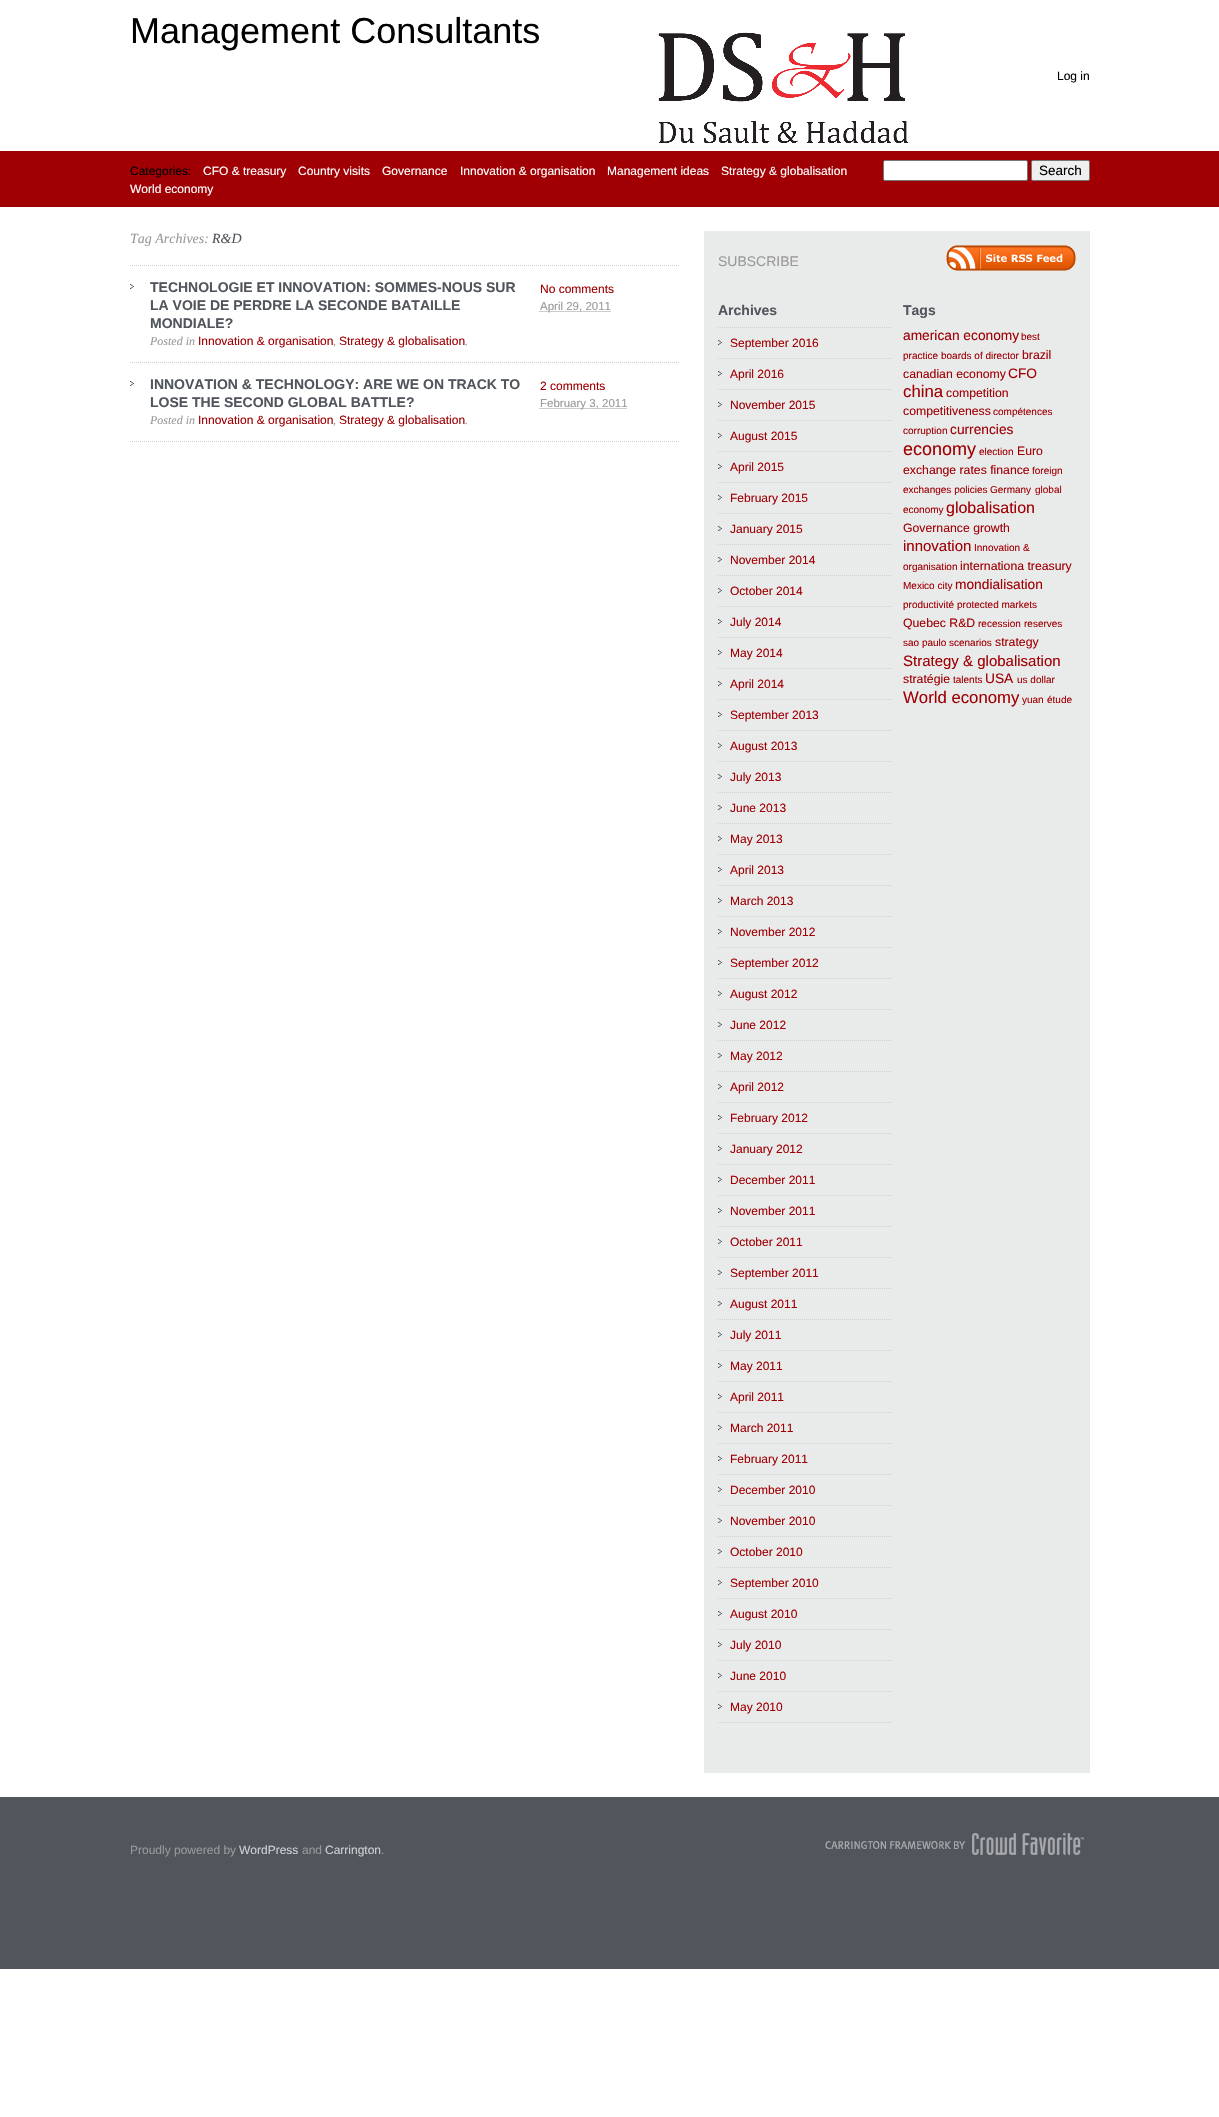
#include "include/core/SkBlurTypes.h"
#include "include/core/SkCanvas.h"
#include "include/core/SkData.h"
#include "include/core/SkFont.h"
#include "include/core/SkFontMgr.h"
#include "include/core/SkImage.h"
#include "include/core/SkMaskFilter.h"
#include "include/core/SkPaint.h"
#include "include/core/SkPathBuilder.h"
#include "include/core/SkTextBlob.h"
#include "include/effects/SkDashPathEffect.h"
#include "include/effects/SkGradientShader.h"
#include "include/utils/SkParsePath.h"

extern sk_sp<SkFontMgr> fontMgr;

void draw(SkCanvas* canvas) {
  SkPaint p;
  p.setAntiAlias(true);
  canvas->clear(SK_ColorWHITE);
  canvas->drawImageRect(SkImages::DeferredFromEncodedData(SkData::MakeFromFileName("images/1.png")), SkRect::MakeLTRB(658, 32, 909, 143), SkSamplingOptions());
  p.setColor(SkColorSetRGB(160, 0, 4));
  canvas->drawRect(SkRect::MakeLTRB(0, 151, 1219, 207), p);
  p.setColor(SK_ColorWHITE);
  canvas->drawRoundRect(SkRect::MakeLTRB(883.5f, 160.5f, 1027.5f, 180.5f), 1.5f, 1.5f, p);
  p.setStyle(SkPaint::kStroke_Style);
  p.setStrokeWidth(1);
  p.setColor(SkColorSetRGB(118, 118, 118));
  canvas->drawRoundRect(SkRect::MakeLTRB(883.5f, 160.5f, 1027.5f, 180.5f), 1.5f, 1.5f, p);
  p.setStyle(SkPaint::kFill_Style);
  p.setColor(SkColorSetRGB(239, 239, 239));
  canvas->drawRoundRect(SkRect::MakeLTRB(1031.5f, 160.5f, 1089.5f, 180.5f), 1.5f, 1.5f, p);
  p.setStyle(SkPaint::kStroke_Style);
  p.setColor(SkColorSetRGB(118, 118, 118));
  canvas->drawRoundRect(SkRect::MakeLTRB(1031.5f, 160.5f, 1089.5f, 180.5f), 1.5f, 1.5f, p);
  p.setColor(SkColorSetRGB(206, 207, 209));
  p.setPathEffect(SkDashPathEffect::Make({{1, 1}}, 0));
  canvas->drawPath(SkPathBuilder().moveTo(130, 265.5f).lineTo(680, 265.5f).detach(), p);
  p.setPathEffect(nullptr);
  canvas->drawImageRect(SkImages::DeferredFromEncodedData(SkData::MakeFromFileName("images/2.png")), SkRect::MakeLTRB(130, 284, 134, 289), SkSamplingOptions());
  p.setPathEffect(SkDashPathEffect::Make({{1, 1}}, 0));
  canvas->drawPath(SkPathBuilder().moveTo(130, 362.5f).lineTo(680, 362.5f).detach(), p);
  p.setPathEffect(nullptr);
  p.setColor(SkColorSetRGB(153, 153, 153));
  p.setPathEffect(SkDashPathEffect::Make({{1, 1}}, 0));
  canvas->drawPath(SkPathBuilder().moveTo(539.5f, 311.5f).lineTo(610.5f, 311.5f).detach(), p);
  p.setPathEffect(nullptr);
  canvas->drawImageRect(SkImages::DeferredFromEncodedData(SkData::MakeFromFileName("images/2.png")), SkRect::MakeLTRB(130, 381, 134, 386), SkSamplingOptions());
  p.setColor(SkColorSetRGB(206, 207, 209));
  p.setPathEffect(SkDashPathEffect::Make({{1, 1}}, 0));
  canvas->drawPath(SkPathBuilder().moveTo(130, 441.5f).lineTo(680, 441.5f).detach(), p);
  p.setPathEffect(nullptr);
  p.setColor(SkColorSetRGB(153, 153, 153));
  p.setPathEffect(SkDashPathEffect::Make({{1, 1}}, 0));
  canvas->drawPath(SkPathBuilder().moveTo(539.5f, 408.5f).lineTo(627, 408.5f).detach(), p);
  p.setPathEffect(nullptr);
  p.setStyle(SkPaint::kFill_Style);
  p.setColor(SkColorSetRGB(233, 234, 234));
  canvas->drawRect(SkRect::MakeLTRB(704, 231, 1090, 1773), p);
  canvas->drawImageRect(SkImages::DeferredFromEncodedData(SkData::MakeFromFileName("images/3.png")), SkRect::MakeLTRB(946, 245, 1076, 271), SkSamplingOptions());
  p.setStyle(SkPaint::kStroke_Style);
  p.setColor(SkColorSetRGB(206, 207, 209));
  p.setPathEffect(SkDashPathEffect::Make({{1, 1}}, 0));
  canvas->drawPath(SkPathBuilder().moveTo(718, 327.5f).lineTo(891, 327.5f).detach(), p);
  p.setPathEffect(nullptr);
  canvas->drawImageRect(SkImages::DeferredFromEncodedData(SkData::MakeFromFileName("images/4.png")), SkRect::MakeLTRB(718, 340, 722, 345), SkSamplingOptions());
  p.setPathEffect(SkDashPathEffect::Make({{1, 1}}, 0));
  canvas->drawPath(SkPathBuilder().moveTo(718, 358.5f).lineTo(891, 358.5f).detach(), p);
  p.setPathEffect(nullptr);
  canvas->drawImageRect(SkImages::DeferredFromEncodedData(SkData::MakeFromFileName("images/4.png")), SkRect::MakeLTRB(718, 371, 722, 376), SkSamplingOptions());
  p.setPathEffect(SkDashPathEffect::Make({{1, 1}}, 0));
  canvas->drawPath(SkPathBuilder().moveTo(718, 389.5f).lineTo(891, 389.5f).detach(), p);
  p.setPathEffect(nullptr);
  canvas->drawImageRect(SkImages::DeferredFromEncodedData(SkData::MakeFromFileName("images/4.png")), SkRect::MakeLTRB(718, 402, 722, 407), SkSamplingOptions());
  p.setPathEffect(SkDashPathEffect::Make({{1, 1}}, 0));
  canvas->drawPath(SkPathBuilder().moveTo(718, 420.5f).lineTo(891, 420.5f).detach(), p);
  p.setPathEffect(nullptr);
  canvas->drawImageRect(SkImages::DeferredFromEncodedData(SkData::MakeFromFileName("images/4.png")), SkRect::MakeLTRB(718, 433, 722, 438), SkSamplingOptions());
  p.setPathEffect(SkDashPathEffect::Make({{1, 1}}, 0));
  canvas->drawPath(SkPathBuilder().moveTo(718, 451.5f).lineTo(891, 451.5f).detach(), p);
  p.setPathEffect(nullptr);
  canvas->drawImageRect(SkImages::DeferredFromEncodedData(SkData::MakeFromFileName("images/4.png")), SkRect::MakeLTRB(718, 464, 722, 469), SkSamplingOptions());
  p.setPathEffect(SkDashPathEffect::Make({{1, 1}}, 0));
  canvas->drawPath(SkPathBuilder().moveTo(718, 482.5f).lineTo(891, 482.5f).detach(), p);
  p.setPathEffect(nullptr);
  canvas->drawImageRect(SkImages::DeferredFromEncodedData(SkData::MakeFromFileName("images/4.png")), SkRect::MakeLTRB(718, 495, 722, 500), SkSamplingOptions());
  p.setPathEffect(SkDashPathEffect::Make({{1, 1}}, 0));
  canvas->drawPath(SkPathBuilder().moveTo(718, 513.5f).lineTo(891, 513.5f).detach(), p);
  p.setPathEffect(nullptr);
  canvas->drawImageRect(SkImages::DeferredFromEncodedData(SkData::MakeFromFileName("images/4.png")), SkRect::MakeLTRB(718, 526, 722, 531), SkSamplingOptions());
  p.setPathEffect(SkDashPathEffect::Make({{1, 1}}, 0));
  canvas->drawPath(SkPathBuilder().moveTo(718, 544.5f).lineTo(891, 544.5f).detach(), p);
  p.setPathEffect(nullptr);
  canvas->drawImageRect(SkImages::DeferredFromEncodedData(SkData::MakeFromFileName("images/4.png")), SkRect::MakeLTRB(718, 557, 722, 562), SkSamplingOptions());
  p.setPathEffect(SkDashPathEffect::Make({{1, 1}}, 0));
  canvas->drawPath(SkPathBuilder().moveTo(718, 575.5f).lineTo(891, 575.5f).detach(), p);
  p.setPathEffect(nullptr);
  canvas->drawImageRect(SkImages::DeferredFromEncodedData(SkData::MakeFromFileName("images/4.png")), SkRect::MakeLTRB(718, 588, 722, 593), SkSamplingOptions());
  p.setPathEffect(SkDashPathEffect::Make({{1, 1}}, 0));
  canvas->drawPath(SkPathBuilder().moveTo(718, 606.5f).lineTo(891, 606.5f).detach(), p);
  p.setPathEffect(nullptr);
  canvas->drawImageRect(SkImages::DeferredFromEncodedData(SkData::MakeFromFileName("images/4.png")), SkRect::MakeLTRB(718, 619, 722, 624), SkSamplingOptions());
  p.setPathEffect(SkDashPathEffect::Make({{1, 1}}, 0));
  canvas->drawPath(SkPathBuilder().moveTo(718, 637.5f).lineTo(891, 637.5f).detach(), p);
  p.setPathEffect(nullptr);
  canvas->drawImageRect(SkImages::DeferredFromEncodedData(SkData::MakeFromFileName("images/4.png")), SkRect::MakeLTRB(718, 650, 722, 655), SkSamplingOptions());
  p.setPathEffect(SkDashPathEffect::Make({{1, 1}}, 0));
  canvas->drawPath(SkPathBuilder().moveTo(718, 668.5f).lineTo(891, 668.5f).detach(), p);
  p.setPathEffect(nullptr);
  canvas->drawImageRect(SkImages::DeferredFromEncodedData(SkData::MakeFromFileName("images/4.png")), SkRect::MakeLTRB(718, 681, 722, 686), SkSamplingOptions());
  p.setPathEffect(SkDashPathEffect::Make({{1, 1}}, 0));
  canvas->drawPath(SkPathBuilder().moveTo(718, 699.5f).lineTo(891, 699.5f).detach(), p);
  p.setPathEffect(nullptr);
  canvas->drawImageRect(SkImages::DeferredFromEncodedData(SkData::MakeFromFileName("images/4.png")), SkRect::MakeLTRB(718, 712, 722, 717), SkSamplingOptions());
  p.setPathEffect(SkDashPathEffect::Make({{1, 1}}, 0));
  canvas->drawPath(SkPathBuilder().moveTo(718, 730.5f).lineTo(891, 730.5f).detach(), p);
  p.setPathEffect(nullptr);
  canvas->drawImageRect(SkImages::DeferredFromEncodedData(SkData::MakeFromFileName("images/4.png")), SkRect::MakeLTRB(718, 743, 722, 748), SkSamplingOptions());
  p.setPathEffect(SkDashPathEffect::Make({{1, 1}}, 0));
  canvas->drawPath(SkPathBuilder().moveTo(718, 761.5f).lineTo(891, 761.5f).detach(), p);
  p.setPathEffect(nullptr);
  canvas->drawImageRect(SkImages::DeferredFromEncodedData(SkData::MakeFromFileName("images/4.png")), SkRect::MakeLTRB(718, 774, 722, 779), SkSamplingOptions());
  p.setPathEffect(SkDashPathEffect::Make({{1, 1}}, 0));
  canvas->drawPath(SkPathBuilder().moveTo(718, 792.5f).lineTo(891, 792.5f).detach(), p);
  p.setPathEffect(nullptr);
  canvas->drawImageRect(SkImages::DeferredFromEncodedData(SkData::MakeFromFileName("images/4.png")), SkRect::MakeLTRB(718, 805, 722, 810), SkSamplingOptions());
  p.setPathEffect(SkDashPathEffect::Make({{1, 1}}, 0));
  canvas->drawPath(SkPathBuilder().moveTo(718, 823.5f).lineTo(891, 823.5f).detach(), p);
  p.setPathEffect(nullptr);
  canvas->drawImageRect(SkImages::DeferredFromEncodedData(SkData::MakeFromFileName("images/4.png")), SkRect::MakeLTRB(718, 836, 722, 841), SkSamplingOptions());
  p.setPathEffect(SkDashPathEffect::Make({{1, 1}}, 0));
  canvas->drawPath(SkPathBuilder().moveTo(718, 854.5f).lineTo(891, 854.5f).detach(), p);
  p.setPathEffect(nullptr);
  canvas->drawImageRect(SkImages::DeferredFromEncodedData(SkData::MakeFromFileName("images/4.png")), SkRect::MakeLTRB(718, 867, 722, 872), SkSamplingOptions());
  p.setPathEffect(SkDashPathEffect::Make({{1, 1}}, 0));
  canvas->drawPath(SkPathBuilder().moveTo(718, 885.5f).lineTo(891, 885.5f).detach(), p);
  p.setPathEffect(nullptr);
  canvas->drawImageRect(SkImages::DeferredFromEncodedData(SkData::MakeFromFileName("images/4.png")), SkRect::MakeLTRB(718, 898, 722, 903), SkSamplingOptions());
  p.setPathEffect(SkDashPathEffect::Make({{1, 1}}, 0));
  canvas->drawPath(SkPathBuilder().moveTo(718, 916.5f).lineTo(891, 916.5f).detach(), p);
  p.setPathEffect(nullptr);
  canvas->drawImageRect(SkImages::DeferredFromEncodedData(SkData::MakeFromFileName("images/4.png")), SkRect::MakeLTRB(718, 929, 722, 934), SkSamplingOptions());
  p.setPathEffect(SkDashPathEffect::Make({{1, 1}}, 0));
  canvas->drawPath(SkPathBuilder().moveTo(718, 947.5f).lineTo(891, 947.5f).detach(), p);
  p.setPathEffect(nullptr);
  canvas->drawImageRect(SkImages::DeferredFromEncodedData(SkData::MakeFromFileName("images/4.png")), SkRect::MakeLTRB(718, 960, 722, 965), SkSamplingOptions());
  p.setPathEffect(SkDashPathEffect::Make({{1, 1}}, 0));
  canvas->drawPath(SkPathBuilder().moveTo(718, 978.5f).lineTo(891, 978.5f).detach(), p);
  p.setPathEffect(nullptr);
  canvas->drawImageRect(SkImages::DeferredFromEncodedData(SkData::MakeFromFileName("images/4.png")), SkRect::MakeLTRB(718, 991, 722, 996), SkSamplingOptions());
  p.setPathEffect(SkDashPathEffect::Make({{1, 1}}, 0));
  canvas->drawPath(SkPathBuilder().moveTo(718, 1009.5f).lineTo(891, 1009.5f).detach(), p);
  p.setPathEffect(nullptr);
  canvas->drawImageRect(SkImages::DeferredFromEncodedData(SkData::MakeFromFileName("images/4.png")), SkRect::MakeLTRB(718, 1022, 722, 1027), SkSamplingOptions());
  p.setPathEffect(SkDashPathEffect::Make({{1, 1}}, 0));
  canvas->drawPath(SkPathBuilder().moveTo(718, 1040.5f).lineTo(891, 1040.5f).detach(), p);
  p.setPathEffect(nullptr);
  canvas->drawImageRect(SkImages::DeferredFromEncodedData(SkData::MakeFromFileName("images/4.png")), SkRect::MakeLTRB(718, 1053, 722, 1058), SkSamplingOptions());
  p.setPathEffect(SkDashPathEffect::Make({{1, 1}}, 0));
  canvas->drawPath(SkPathBuilder().moveTo(718, 1071.5f).lineTo(891, 1071.5f).detach(), p);
  p.setPathEffect(nullptr);
  canvas->drawImageRect(SkImages::DeferredFromEncodedData(SkData::MakeFromFileName("images/4.png")), SkRect::MakeLTRB(718, 1084, 722, 1089), SkSamplingOptions());
  p.setPathEffect(SkDashPathEffect::Make({{1, 1}}, 0));
  canvas->drawPath(SkPathBuilder().moveTo(718, 1102.5f).lineTo(891, 1102.5f).detach(), p);
  p.setPathEffect(nullptr);
  canvas->drawImageRect(SkImages::DeferredFromEncodedData(SkData::MakeFromFileName("images/4.png")), SkRect::MakeLTRB(718, 1115, 722, 1120), SkSamplingOptions());
  p.setPathEffect(SkDashPathEffect::Make({{1, 1}}, 0));
  canvas->drawPath(SkPathBuilder().moveTo(718, 1133.5f).lineTo(891, 1133.5f).detach(), p);
  p.setPathEffect(nullptr);
  canvas->drawImageRect(SkImages::DeferredFromEncodedData(SkData::MakeFromFileName("images/4.png")), SkRect::MakeLTRB(718, 1146, 722, 1151), SkSamplingOptions());
  p.setPathEffect(SkDashPathEffect::Make({{1, 1}}, 0));
  canvas->drawPath(SkPathBuilder().moveTo(718, 1164.5f).lineTo(891, 1164.5f).detach(), p);
  p.setPathEffect(nullptr);
  canvas->drawImageRect(SkImages::DeferredFromEncodedData(SkData::MakeFromFileName("images/4.png")), SkRect::MakeLTRB(718, 1177, 722, 1182), SkSamplingOptions());
  p.setPathEffect(SkDashPathEffect::Make({{1, 1}}, 0));
  canvas->drawPath(SkPathBuilder().moveTo(718, 1195.5f).lineTo(891, 1195.5f).detach(), p);
  p.setPathEffect(nullptr);
  canvas->drawImageRect(SkImages::DeferredFromEncodedData(SkData::MakeFromFileName("images/4.png")), SkRect::MakeLTRB(718, 1208, 722, 1213), SkSamplingOptions());
  p.setPathEffect(SkDashPathEffect::Make({{1, 1}}, 0));
  canvas->drawPath(SkPathBuilder().moveTo(718, 1226.5f).lineTo(891, 1226.5f).detach(), p);
  p.setPathEffect(nullptr);
  canvas->drawImageRect(SkImages::DeferredFromEncodedData(SkData::MakeFromFileName("images/4.png")), SkRect::MakeLTRB(718, 1239, 722, 1244), SkSamplingOptions());
  p.setPathEffect(SkDashPathEffect::Make({{1, 1}}, 0));
  canvas->drawPath(SkPathBuilder().moveTo(718, 1257.5f).lineTo(891, 1257.5f).detach(), p);
  p.setPathEffect(nullptr);
  canvas->drawImageRect(SkImages::DeferredFromEncodedData(SkData::MakeFromFileName("images/4.png")), SkRect::MakeLTRB(718, 1270, 722, 1275), SkSamplingOptions());
  p.setPathEffect(SkDashPathEffect::Make({{1, 1}}, 0));
  canvas->drawPath(SkPathBuilder().moveTo(718, 1288.5f).lineTo(891, 1288.5f).detach(), p);
  p.setPathEffect(nullptr);
  canvas->drawImageRect(SkImages::DeferredFromEncodedData(SkData::MakeFromFileName("images/4.png")), SkRect::MakeLTRB(718, 1301, 722, 1306), SkSamplingOptions());
  p.setPathEffect(SkDashPathEffect::Make({{1, 1}}, 0));
  canvas->drawPath(SkPathBuilder().moveTo(718, 1319.5f).lineTo(891, 1319.5f).detach(), p);
  p.setPathEffect(nullptr);
  canvas->drawImageRect(SkImages::DeferredFromEncodedData(SkData::MakeFromFileName("images/4.png")), SkRect::MakeLTRB(718, 1332, 722, 1337), SkSamplingOptions());
  p.setPathEffect(SkDashPathEffect::Make({{1, 1}}, 0));
  canvas->drawPath(SkPathBuilder().moveTo(718, 1350.5f).lineTo(891, 1350.5f).detach(), p);
  p.setPathEffect(nullptr);
  canvas->drawImageRect(SkImages::DeferredFromEncodedData(SkData::MakeFromFileName("images/4.png")), SkRect::MakeLTRB(718, 1363, 722, 1368), SkSamplingOptions());
  p.setPathEffect(SkDashPathEffect::Make({{1, 1}}, 0));
  canvas->drawPath(SkPathBuilder().moveTo(718, 1381.5f).lineTo(891, 1381.5f).detach(), p);
  p.setPathEffect(nullptr);
  canvas->drawImageRect(SkImages::DeferredFromEncodedData(SkData::MakeFromFileName("images/4.png")), SkRect::MakeLTRB(718, 1394, 722, 1399), SkSamplingOptions());
  p.setPathEffect(SkDashPathEffect::Make({{1, 1}}, 0));
  canvas->drawPath(SkPathBuilder().moveTo(718, 1412.5f).lineTo(891, 1412.5f).detach(), p);
  p.setPathEffect(nullptr);
  canvas->drawImageRect(SkImages::DeferredFromEncodedData(SkData::MakeFromFileName("images/4.png")), SkRect::MakeLTRB(718, 1425, 722, 1430), SkSamplingOptions());
  p.setPathEffect(SkDashPathEffect::Make({{1, 1}}, 0));
  canvas->drawPath(SkPathBuilder().moveTo(718, 1443.5f).lineTo(891, 1443.5f).detach(), p);
  p.setPathEffect(nullptr);
  canvas->drawImageRect(SkImages::DeferredFromEncodedData(SkData::MakeFromFileName("images/4.png")), SkRect::MakeLTRB(718, 1456, 722, 1461), SkSamplingOptions());
  p.setPathEffect(SkDashPathEffect::Make({{1, 1}}, 0));
  canvas->drawPath(SkPathBuilder().moveTo(718, 1474.5f).lineTo(891, 1474.5f).detach(), p);
  p.setPathEffect(nullptr);
  canvas->drawImageRect(SkImages::DeferredFromEncodedData(SkData::MakeFromFileName("images/4.png")), SkRect::MakeLTRB(718, 1487, 722, 1492), SkSamplingOptions());
  p.setPathEffect(SkDashPathEffect::Make({{1, 1}}, 0));
  canvas->drawPath(SkPathBuilder().moveTo(718, 1505.5f).lineTo(891, 1505.5f).detach(), p);
  p.setPathEffect(nullptr);
  canvas->drawImageRect(SkImages::DeferredFromEncodedData(SkData::MakeFromFileName("images/4.png")), SkRect::MakeLTRB(718, 1518, 722, 1523), SkSamplingOptions());
  p.setPathEffect(SkDashPathEffect::Make({{1, 1}}, 0));
  canvas->drawPath(SkPathBuilder().moveTo(718, 1536.5f).lineTo(891, 1536.5f).detach(), p);
  p.setPathEffect(nullptr);
  canvas->drawImageRect(SkImages::DeferredFromEncodedData(SkData::MakeFromFileName("images/4.png")), SkRect::MakeLTRB(718, 1549, 722, 1554), SkSamplingOptions());
  p.setPathEffect(SkDashPathEffect::Make({{1, 1}}, 0));
  canvas->drawPath(SkPathBuilder().moveTo(718, 1567.5f).lineTo(891, 1567.5f).detach(), p);
  p.setPathEffect(nullptr);
  canvas->drawImageRect(SkImages::DeferredFromEncodedData(SkData::MakeFromFileName("images/4.png")), SkRect::MakeLTRB(718, 1580, 722, 1585), SkSamplingOptions());
  p.setPathEffect(SkDashPathEffect::Make({{1, 1}}, 0));
  canvas->drawPath(SkPathBuilder().moveTo(718, 1598.5f).lineTo(891, 1598.5f).detach(), p);
  p.setPathEffect(nullptr);
  canvas->drawImageRect(SkImages::DeferredFromEncodedData(SkData::MakeFromFileName("images/4.png")), SkRect::MakeLTRB(718, 1611, 722, 1616), SkSamplingOptions());
  p.setPathEffect(SkDashPathEffect::Make({{1, 1}}, 0));
  canvas->drawPath(SkPathBuilder().moveTo(718, 1629.5f).lineTo(891, 1629.5f).detach(), p);
  p.setPathEffect(nullptr);
  canvas->drawImageRect(SkImages::DeferredFromEncodedData(SkData::MakeFromFileName("images/4.png")), SkRect::MakeLTRB(718, 1642, 722, 1647), SkSamplingOptions());
  p.setPathEffect(SkDashPathEffect::Make({{1, 1}}, 0));
  canvas->drawPath(SkPathBuilder().moveTo(718, 1660.5f).lineTo(891, 1660.5f).detach(), p);
  p.setPathEffect(nullptr);
  canvas->drawImageRect(SkImages::DeferredFromEncodedData(SkData::MakeFromFileName("images/4.png")), SkRect::MakeLTRB(718, 1673, 722, 1678), SkSamplingOptions());
  p.setPathEffect(SkDashPathEffect::Make({{1, 1}}, 0));
  canvas->drawPath(SkPathBuilder().moveTo(718, 1691.5f).lineTo(891, 1691.5f).detach(), p);
  p.setPathEffect(nullptr);
  canvas->drawImageRect(SkImages::DeferredFromEncodedData(SkData::MakeFromFileName("images/4.png")), SkRect::MakeLTRB(718, 1704, 722, 1709), SkSamplingOptions());
  p.setPathEffect(SkDashPathEffect::Make({{1, 1}}, 0));
  canvas->drawPath(SkPathBuilder().moveTo(718, 1722.5f).lineTo(891, 1722.5f).detach(), p);
  p.setPathEffect(nullptr);
  p.setStyle(SkPaint::kFill_Style);
  p.setColor(SkColorSetRGB(81, 85, 92));
  canvas->drawRect(SkRect::MakeLTRB(0, 1797, 1219, 1969), p);
  canvas->drawImageRect(SkImages::DeferredFromEncodedData(SkData::MakeFromFileName("images/5.png")), SkRect::MakeLTRB(825, 1833, 1084, 1855), SkSamplingOptions());
  SkFont font1(fontMgr->matchFamilyStyle("Liberation Sans", SkFontStyle::Normal()), 36);
  font1.setSubpixel(true);
  p.setColor(SK_ColorBLACK);
  canvas->drawString("Management Consultants", 130, 43, font1, p);
  SkFont font2(fontMgr->matchFamilyStyle("Liberation Sans", SkFontStyle::Normal()), 12);
  font2.setSubpixel(true);
  canvas->drawString("Log in", 1057, 80, font2, p);
  p.setColor(SK_ColorWHITE);
  canvas->drawString("CFO & treasury", 203, 175, font2, p);
  canvas->drawString("Country visits", 298, 175, font2, p);
  canvas->drawString("Governance", 382, 175, font2, p);
  canvas->drawString("Innovation & organisation", 460, 175, font2, p);
  canvas->drawString("Management ideas", 607, 175, font2, p);
  canvas->drawString("Strategy & globalisation", 721, 175, font2, p);
  canvas->drawString("World economy", 130, 193, font2, p);
  p.setColor(SK_ColorBLACK);
  canvas->drawString("Categories:", 130, 175, font2, p);
  SkFont font3(fontMgr->matchFamilyStyle("Liberation Sans", SkFontStyle::Normal()), 13.5f);
  font3.setSubpixel(true);
  canvas->drawString("Search", 1039, 175, font3, p);
  SkFont font4(fontMgr->matchFamilyStyle("Liberation Serif", SkFontStyle::Italic()), 14);
  font4.setSubpixel(true);
  p.setColor(SkColorSetRGB(153, 153, 153));
  canvas->drawString("Tag Archives:", 130, 243, font4, p);
  p.setColor(SkColorSetRGB(81, 85, 92));
  canvas->drawString("R&D", 212, 243, font4, p);
  SkFont font5(fontMgr->matchFamilyStyle("Liberation Sans", SkFontStyle::Bold()), 14);
  font5.setSubpixel(true);
  canvas->drawString("TECHNOLOGIE ET INNOVATION: SOMMES-NOUS SUR", 150, 292, font5, p);
  p.setColor(SkColorSetRGB(160, 0, 4));
  canvas->drawString("No comments", 540, 293, font2, p);
  p.setColor(SkColorSetRGB(81, 85, 92));
  canvas->drawString("LA VOIE DE PERDRE LA SECONDE BATAILLE", 150, 310, font5, p);
  SkFont font6(fontMgr->matchFamilyStyle("Liberation Sans", SkFontStyle::Normal()), 11.5f);
  font6.setSubpixel(true);
  p.setColor(SkColorSetRGB(153, 153, 153));
  canvas->drawString("April 29, 2011", 540, 310, font6, p);
  p.setColor(SkColorSetRGB(81, 85, 92));
  canvas->drawString("MONDIALE?", 150, 328, font5, p);
  SkFont font7(fontMgr->matchFamilyStyle("Liberation Serif", SkFontStyle::Italic()), 12);
  font7.setSubpixel(true);
  p.setColor(SkColorSetRGB(153, 153, 153));
  canvas->drawString("Posted in", 150, 345, font7, p);
  p.setColor(SkColorSetRGB(160, 0, 4));
  canvas->drawString("Innovation & organisation", 198, 345, font2, p);
  p.setColor(SkColorSetRGB(153, 153, 153));
  canvas->drawString(",", 333, 345, font7, p);
  p.setColor(SkColorSetRGB(160, 0, 4));
  canvas->drawString("Strategy & globalisation", 339, 345, font2, p);
  p.setColor(SkColorSetRGB(153, 153, 153));
  canvas->drawString(".", 465, 345, font7, p);
  p.setColor(SkColorSetRGB(81, 85, 92));
  canvas->drawString("INNOVATION & TECHNOLOGY: ARE WE ON TRACK TO", 150, 389, font5, p);
  p.setColor(SkColorSetRGB(160, 0, 4));
  canvas->drawString("2 comments", 540, 390, font2, p);
  p.setColor(SkColorSetRGB(81, 85, 92));
  canvas->drawString("LOSE THE SECOND GLOBAL BATTLE?", 150, 407, font5, p);
  p.setColor(SkColorSetRGB(153, 153, 153));
  canvas->drawString("February 3, 2011", 540, 407, font6, p);
  canvas->drawString("Posted in", 150, 424, font7, p);
  p.setColor(SkColorSetRGB(160, 0, 4));
  canvas->drawString("Innovation & organisation", 198, 424, font2, p);
  p.setColor(SkColorSetRGB(153, 153, 153));
  canvas->drawString(",", 333, 424, font7, p);
  p.setColor(SkColorSetRGB(160, 0, 4));
  canvas->drawString("Strategy & globalisation", 339, 424, font2, p);
  p.setColor(SkColorSetRGB(153, 153, 153));
  canvas->drawString(".", 465, 424, font7, p);
  SkFont font8(fontMgr->matchFamilyStyle("Liberation Sans", SkFontStyle::Normal()), 14);
  font8.setSubpixel(true);
  canvas->drawString("SUBSCRIBE", 718, 266, font8, p);
  p.setColor(SkColorSetRGB(81, 85, 92));
  canvas->drawString("Archives", 718, 315, font5, p);
  p.setColor(SkColorSetRGB(160, 0, 4));
  canvas->drawString("September 2016", 730, 347, font2, p);
  canvas->drawString("April 2016", 730, 378, font2, p);
  canvas->drawString("November 2015", 730, 409, font2, p);
  canvas->drawString("August 2015", 730, 440, font2, p);
  canvas->drawString("April 2015", 730, 471, font2, p);
  canvas->drawString("February 2015", 730, 502, font2, p);
  canvas->drawString("January 2015", 730, 533, font2, p);
  canvas->drawString("November 2014", 730, 564, font2, p);
  canvas->drawString("October 2014", 730, 595, font2, p);
  canvas->drawString("July 2014", 730, 626, font2, p);
  canvas->drawString("May 2014", 730, 657, font2, p);
  canvas->drawString("April 2014", 730, 688, font2, p);
  canvas->drawString("September 2013", 730, 719, font2, p);
  canvas->drawString("August 2013", 730, 750, font2, p);
  canvas->drawString("July 2013", 730, 781, font2, p);
  canvas->drawString("June 2013", 730, 812, font2, p);
  canvas->drawString("May 2013", 730, 843, font2, p);
  canvas->drawString("April 2013", 730, 874, font2, p);
  canvas->drawString("March 2013", 730, 905, font2, p);
  canvas->drawString("November 2012", 730, 936, font2, p);
  canvas->drawString("September 2012", 730, 967, font2, p);
  canvas->drawString("August 2012", 730, 998, font2, p);
  canvas->drawString("June 2012", 730, 1029, font2, p);
  canvas->drawString("May 2012", 730, 1060, font2, p);
  canvas->drawString("April 2012", 730, 1091, font2, p);
  canvas->drawString("February 2012", 730, 1122, font2, p);
  canvas->drawString("January 2012", 730, 1153, font2, p);
  canvas->drawString("December 2011", 730, 1184, font2, p);
  canvas->drawString("November 2011", 730, 1215, font2, p);
  canvas->drawString("October 2011", 730, 1246, font2, p);
  canvas->drawString("September 2011", 730, 1277, font2, p);
  canvas->drawString("August 2011", 730, 1308, font2, p);
  canvas->drawString("July 2011", 730, 1339, font2, p);
  canvas->drawString("May 2011", 730, 1370, font2, p);
  canvas->drawString("April 2011", 730, 1401, font2, p);
  canvas->drawString("March 2011", 730, 1432, font2, p);
  canvas->drawString("February 2011", 730, 1463, font2, p);
  canvas->drawString("December 2010", 730, 1494, font2, p);
  canvas->drawString("November 2010", 730, 1525, font2, p);
  canvas->drawString("October 2010", 730, 1556, font2, p);
  canvas->drawString("September 2010", 730, 1587, font2, p);
  canvas->drawString("August 2010", 730, 1618, font2, p);
  canvas->drawString("July 2010", 730, 1649, font2, p);
  canvas->drawString("June 2010", 730, 1680, font2, p);
  canvas->drawString("May 2010", 730, 1711, font2, p);
  p.setColor(SkColorSetRGB(81, 85, 92));
  canvas->drawString("Tags", 903, 315, font5, p);
  SkFont font9(fontMgr->matchFamilyStyle("Liberation Sans", SkFontStyle::Normal()), 13.75f);
  font9.setSubpixel(true);
  p.setColor(SkColorSetRGB(160, 0, 4));
  canvas->drawString("american economy", 903, 340, font9, p);
  SkFont font10(fontMgr->matchFamilyStyle("Liberation Sans", SkFontStyle::Normal()), 10);
  font10.setSubpixel(true);
  canvas->drawString("best", 1021, 340, font10, p);
  canvas->drawString("practice", 903, 359, font10, p);
  canvas->drawString("boards of director", 941, 359, font10, p);
  SkFont font11(fontMgr->matchFamilyStyle("Liberation Sans", SkFontStyle::Normal()), 12.25f);
  font11.setSubpixel(true);
  canvas->drawString("brazil", 1022, 359, font11, p);
  canvas->drawString("canadian economy", 903, 378, font11, p);
  canvas->drawString("CFO", 1008, 378, font9, p);
  SkFont font12(fontMgr->matchFamilyStyle("Liberation Sans", SkFontStyle::Normal()), 16.75f);
  font12.setSubpixel(true);
  canvas->drawString("china", 903, 397, font12, p);
  canvas->drawString("competition", 946, 397, font11, p);
  canvas->drawString("competitiveness", 903, 415, font11, p);
  canvas->drawString("compétences", 993, 415, font10, p);
  canvas->drawString("corruption", 903, 434, font10, p);
  canvas->drawString("currencies", 950, 434, font9, p);
  SkFont font13(fontMgr->matchFamilyStyle("Liberation Sans", SkFontStyle::Normal()), 18);
  font13.setSubpixel(true);
  canvas->drawString("economy", 903, 455, font13, p);
  canvas->drawString("election", 979, 455, font10, p);
  canvas->drawString("Euro", 1017, 455, font11, p);
  canvas->drawString("exchange rates finance", 903, 474, font11, p);
  canvas->drawString("foreign", 1032, 474, font10, p);
  canvas->drawString("exchanges policies", 903, 493, font10, p);
  canvas->drawString("Germany", 990, 493, font10, p);
  canvas->drawString("global", 1035, 493, font10, p);
  canvas->drawString("economy", 903, 513, font10, p);
  SkFont font14(fontMgr->matchFamilyStyle("Liberation Sans", SkFontStyle::Normal()), 16);
  font14.setSubpixel(true);
  canvas->drawString("globalisation", 946, 513, font14, p);
  canvas->drawString("Governance growth", 903, 532, font11, p);
  SkFont font15(fontMgr->matchFamilyStyle("Liberation Sans", SkFontStyle::Normal()), 15);
  font15.setSubpixel(true);
  canvas->drawString("innovation", 903, 551, font15, p);
  canvas->drawString("Innovation &", 974, 551, font10, p);
  canvas->drawString("organisation", 903, 570, font10, p);
  canvas->drawString("internationa treasury", 960, 570, font11, p);
  canvas->drawString("Mexico city", 903, 589, font10, p);
  canvas->drawString("mondialisation", 955, 589, font9, p);
  canvas->drawString("productivité", 903, 608, font10, p);
  canvas->drawString("protected markets", 957, 608, font10, p);
  canvas->drawString("Quebec R&D", 903, 627, font11, p);
  canvas->drawString("recession", 978, 627, font10, p);
  canvas->drawString("reserves", 1024, 627, font10, p);
  canvas->drawString("sao paulo", 903, 646, font10, p);
  canvas->drawString("scenarios", 949, 646, font10, p);
  canvas->drawString("strategy", 995, 646, font11, p);
  canvas->drawString("Strategy & globalisation", 903, 666, font15, p);
  canvas->drawString("stratégie", 903, 683, font11, p);
  canvas->drawString("talents", 953, 683, font10, p);
  canvas->drawString("USA", 985, 683, font9, p);
  canvas->drawString("us dollar", 1017, 683, font10, p);
  canvas->drawString("World economy", 903, 703, font12, p);
  canvas->drawString("yuan", 1022, 703, font10, p);
  canvas->drawString("étude", 1047, 703, font10, p);
  p.setColor(SkColorSetRGB(153, 153, 153));
  canvas->drawString("Proudly powered by", 130, 1854, font2, p);
  p.setColor(SkColorSetRGB(206, 207, 209));
  canvas->drawString("WordPress", 239, 1854, font2, p);
  p.setColor(SkColorSetRGB(153, 153, 153));
  canvas->drawString("and", 302, 1854, font2, p);
  p.setColor(SkColorSetRGB(206, 207, 209));
  canvas->drawString("Carrington", 325, 1854, font2, p);
  p.setColor(SkColorSetRGB(153, 153, 153));
  canvas->drawString(".", 381, 1854, font2, p);
}
